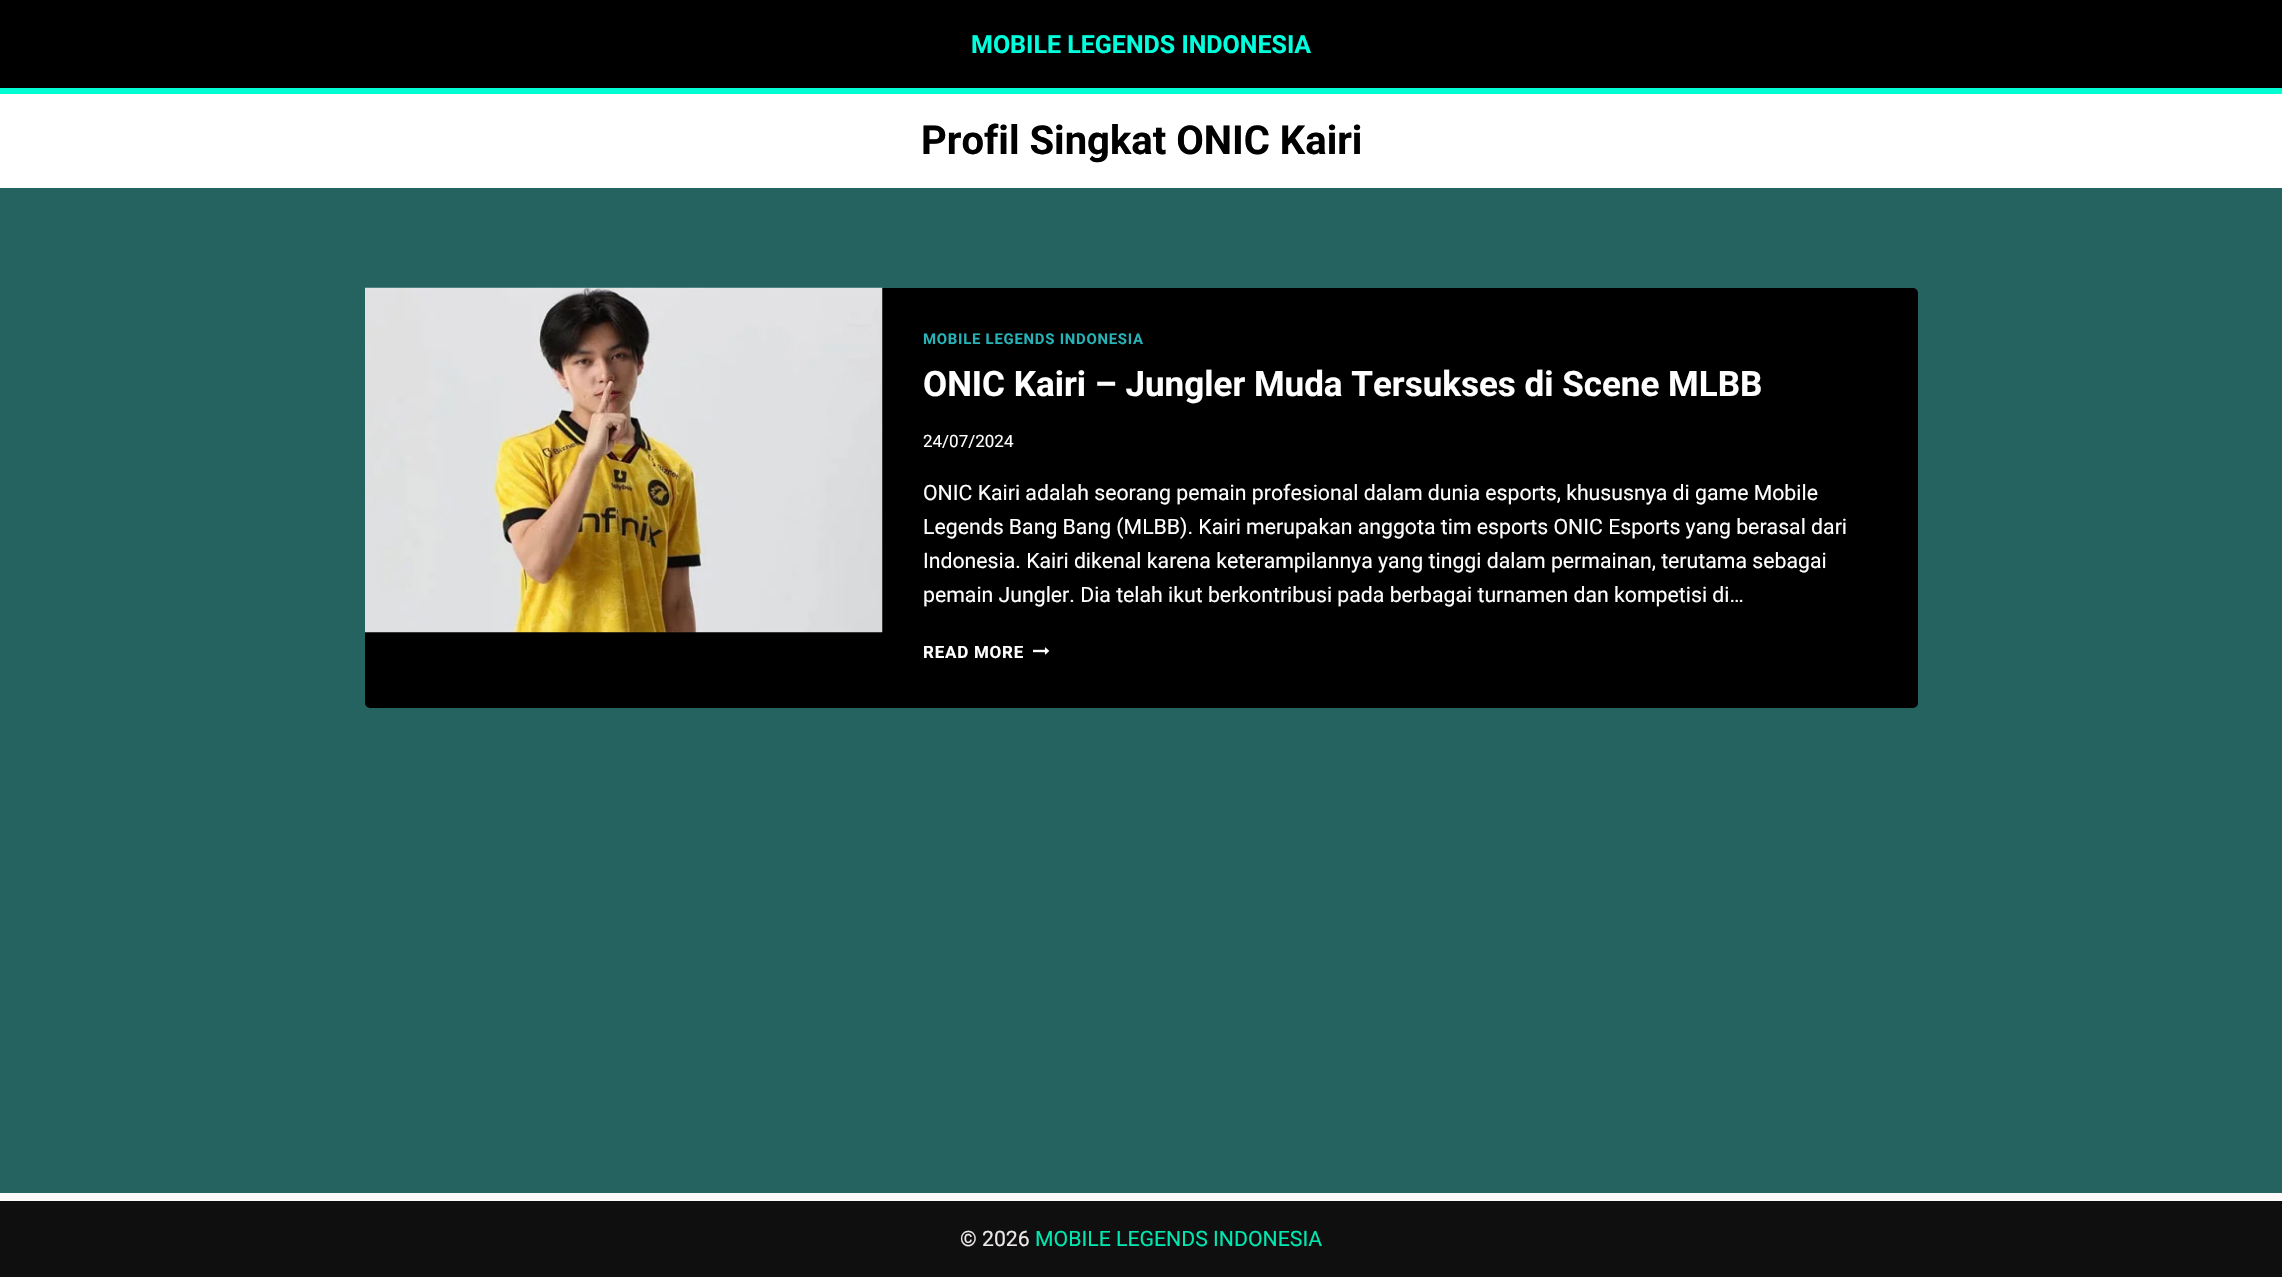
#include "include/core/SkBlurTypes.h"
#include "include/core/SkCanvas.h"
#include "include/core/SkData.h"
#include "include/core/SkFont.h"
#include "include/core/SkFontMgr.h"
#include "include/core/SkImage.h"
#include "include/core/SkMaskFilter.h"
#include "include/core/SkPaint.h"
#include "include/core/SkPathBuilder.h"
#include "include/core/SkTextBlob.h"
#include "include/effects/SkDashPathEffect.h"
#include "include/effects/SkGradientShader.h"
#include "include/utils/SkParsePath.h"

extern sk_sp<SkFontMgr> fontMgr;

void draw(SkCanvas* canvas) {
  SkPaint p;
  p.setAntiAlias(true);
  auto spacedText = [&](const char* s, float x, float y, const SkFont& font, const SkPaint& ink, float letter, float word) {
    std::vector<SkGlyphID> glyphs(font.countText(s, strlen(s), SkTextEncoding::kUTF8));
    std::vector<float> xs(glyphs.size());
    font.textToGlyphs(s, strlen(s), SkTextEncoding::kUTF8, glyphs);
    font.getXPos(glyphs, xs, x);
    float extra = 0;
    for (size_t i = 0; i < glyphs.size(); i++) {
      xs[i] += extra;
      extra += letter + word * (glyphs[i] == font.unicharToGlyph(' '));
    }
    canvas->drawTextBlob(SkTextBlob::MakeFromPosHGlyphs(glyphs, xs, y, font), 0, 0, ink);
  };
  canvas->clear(SkColorSetRGB(36, 99, 96));
  p.setColor(SK_ColorBLACK);
  canvas->drawRect(SkRect::MakeLTRB(0, 0, 2282, 88), p);
  p.setColor(SkColorSetRGB(0, 255, 211));
  canvas->drawRect(SkRect::MakeLTRB(0, 88, 2282, 94), p);
  p.setColor(SK_ColorWHITE);
  canvas->drawRect(SkRect::MakeLTRB(0, 94, 2282, 188), p);
  p.setColor(SK_ColorBLACK);
  canvas->drawRoundRect(SkRect::MakeLTRB(365, 288, 1918, 708), 5, 5, p);
  canvas->drawImageRect(SkImages::DeferredFromEncodedData(SkData::MakeFromFileName("images/1.png")), SkRect::MakeLTRB(365, 287, 883, 633), SkSamplingOptions());
  canvas->drawImageRect(SkImages::DeferredFromEncodedData(SkData::MakeFromFileName("images/2.png")), SkRect::MakeLTRB(1033, 647, 1050, 655), SkSamplingOptions());
  p.setColor(SkColorSetRGB(15, 15, 15));
  canvas->drawRect(SkRect::MakeLTRB(0, 1201, 2282, 1277), p);
  p.setColor(SkColorSetRGB(252, 250, 250));
  canvas->drawRect(SkRect::MakeLTRB(0, 1193, 2282, 1201), p);
  SkFont font1(fontMgr->matchFamilyStyle("Roboto", SkFontStyle::Bold()), 25);
  font1.setSubpixel(true);
  p.setColor(SkColorSetRGB(0, 255, 221));
  canvas->drawString("MOBILE LEGENDS INDONESIA", 971, 53, font1, p);
  SkFont font2(fontMgr->matchFamilyStyle("Roboto", SkFontStyle::Bold()), 40);
  font2.setSubpixel(true);
  p.setColor(SK_ColorBLACK);
  canvas->drawString("Profil Singkat ONIC Kairi", 921, 154, font2, p);
  SkFont font3(fontMgr->matchFamilyStyle("Roboto", SkFontStyle::Bold()), 14.9f);
  font3.setSubpixel(true);
  p.setColor(SkColorSetRGB(38, 178, 182));
  spacedText("MOBILE LEGENDS INDONESIA", 923, 344, font3, p, 0.75f, 0);
  SkFont font4(fontMgr->matchFamilyStyle("Roboto", SkFontStyle::Bold()), 35);
  font4.setSubpixel(true);
  p.setColor(SK_ColorWHITE);
  canvas->drawString("ONIC Kairi – Jungler Muda Tersukses di Scene MLBB", 923, 396, font4, p);
  SkFont font5(fontMgr->matchFamilyStyle("Roboto", SkFontStyle::Normal()), 17);
  font5.setSubpixel(true);
  canvas->drawString("24/07/2024", 923, 447, font5, p);
  SkFont font6(fontMgr->matchFamilyStyle("Roboto", SkFontStyle::Normal()), 21.25f);
  font6.setSubpixel(true);
  canvas->drawString("ONIC Kairi adalah seorang pemain profesional dalam dunia esports, khususnya di game Mobile", 923, 500, font6, p);
  canvas->drawString("Legends Bang Bang (MLBB). Kairi merupakan anggota tim esports ONIC Esports yang berasal dari", 923, 534, font6, p);
  canvas->drawString("Indonesia. Kairi dikenal karena keterampilannya yang tinggi dalam permainan, terutama sebagai", 923, 568, font6, p);
  canvas->drawString("pemain Jungler. Dia telah ikut berkontribusi pada berbagai turnamen dan kompetisi di…", 923, 602, font6, p);
  SkFont font7(fontMgr->matchFamilyStyle("Roboto", SkFontStyle::Bold()), 17);
  font7.setSubpixel(true);
  spacedText("READ MORE", 923, 658, font7, p, 0.75f, 0);
  p.setColor(SkColorSetRGB(237, 232, 232));
  canvas->drawString("© 2026", 960, 1246, font6, p);
  p.setColor(SkColorSetRGB(1, 231, 177));
  canvas->drawString("MOBILE LEGENDS INDONESIA", 1035, 1246, font6, p);
}
